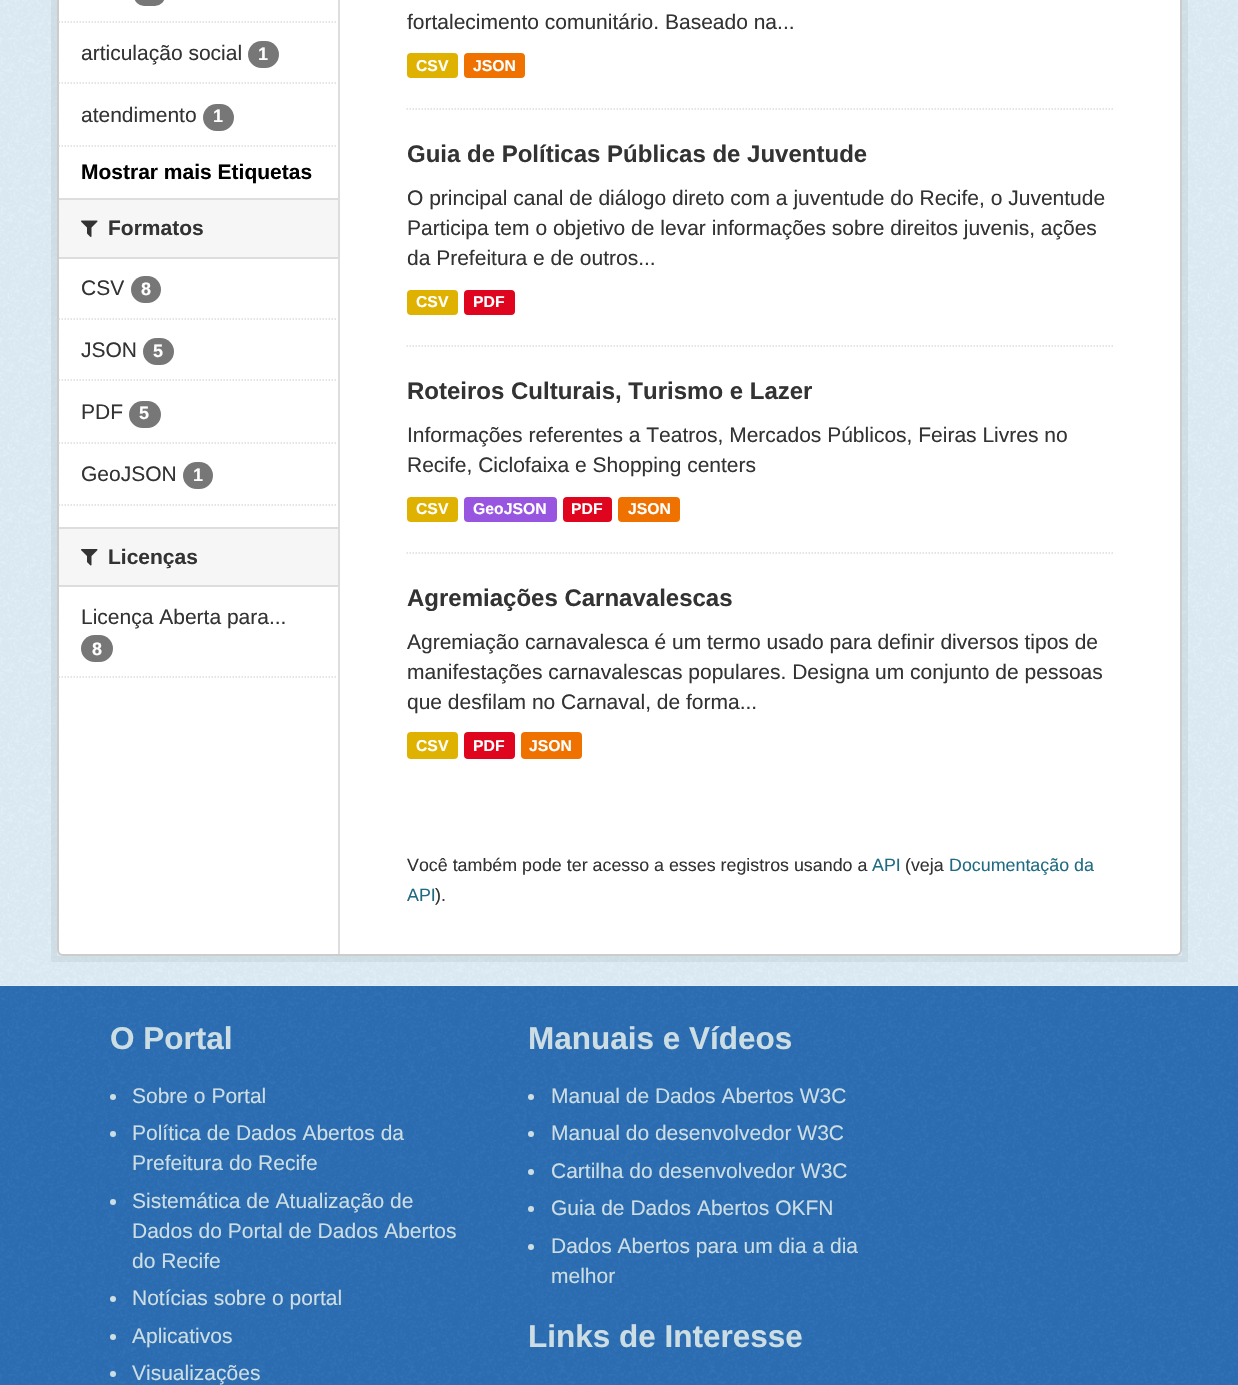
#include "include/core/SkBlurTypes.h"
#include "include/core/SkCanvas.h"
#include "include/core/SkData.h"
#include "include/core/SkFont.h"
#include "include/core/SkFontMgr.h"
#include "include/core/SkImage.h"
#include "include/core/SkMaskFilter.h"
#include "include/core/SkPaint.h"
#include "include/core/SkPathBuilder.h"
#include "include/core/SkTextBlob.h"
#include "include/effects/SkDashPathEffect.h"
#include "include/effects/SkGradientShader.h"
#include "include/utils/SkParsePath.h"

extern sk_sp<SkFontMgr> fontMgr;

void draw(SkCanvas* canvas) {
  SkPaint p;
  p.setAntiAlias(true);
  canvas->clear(SkColorSetRGB(44, 111, 182));
  p.setColor(SkColorSetRGB(224, 240, 249));
  canvas->drawRect(SkRect::MakeLTRB(0, 0, 1238, 986), p);
  canvas->drawImageRect(SkImages::DeferredFromEncodedData(SkData::MakeFromFileName("images/1.png")), SkRect::MakeLTRB(0, 0, 1238, 985), SkSamplingOptions());
  p.setStyle(SkPaint::kStroke_Style);
  p.setStrokeWidth(6);
  p.setColor(SkColorSetARGB(13, 0, 0, 0));
  canvas->drawRect(SkRect::MakeLTRB(54, -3, 1185, 959), p);
  p.setStyle(SkPaint::kFill_Style);
  p.setColor(SK_ColorWHITE);
  canvas->drawRoundRect(SkRect::MakeLTRB(58, -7, 1181, 955), 5, 5, p);
  p.setStyle(SkPaint::kStroke_Style);
  p.setStrokeWidth(2);
  p.setColor(SkColorSetRGB(204, 204, 204));
  canvas->drawRoundRect(SkRect::MakeLTRB(58, -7, 1181, 955), 5, 5, p);
  p.setStrokeWidth(1.5f);
  p.setColor(SkColorSetRGB(221, 221, 221));
  p.setPathEffect(SkDashPathEffect::Make({{1.5f, 1.5f}}, 0));
  canvas->drawPath(SkPathBuilder().moveTo(58.5f, 22).lineTo(337.5f, 22).detach(), p);
  p.setPathEffect(nullptr);
  p.setStyle(SkPaint::kFill_Style);
  p.setColor(SkColorSetRGB(119, 119, 119));
  canvas->drawRoundRect(SkRect::MakeLTRB(134, -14, 165, 6), 13.5f, 13.5f, p);
  p.setStyle(SkPaint::kStroke_Style);
  p.setColor(SkColorSetRGB(221, 221, 221));
  p.setPathEffect(SkDashPathEffect::Make({{1.5f, 1.5f}}, 0));
  canvas->drawPath(SkPathBuilder().moveTo(58.5f, 83).lineTo(337.5f, 83).detach(), p);
  p.setPathEffect(nullptr);
  p.setStyle(SkPaint::kFill_Style);
  p.setColor(SkColorSetRGB(119, 119, 119));
  canvas->drawRoundRect(SkRect::MakeLTRB(248, 41, 279, 68), 13.5f, 13.5f, p);
  canvas->drawRoundRect(SkRect::MakeLTRB(203, 104, 234, 131), 13.5f, 13.5f, p);
  p.setStyle(SkPaint::kStroke_Style);
  p.setColor(SkColorSetRGB(221, 221, 221));
  p.setPathEffect(SkDashPathEffect::Make({{1.5f, 1.5f}}, 0));
  canvas->drawPath(SkPathBuilder().moveTo(58.5f, 146).lineTo(337.5f, 146).detach(), p);
  p.setPathEffect(nullptr);
  p.setStyle(SkPaint::kFill_Style);
  p.setColor(SkColorSetRGB(246, 246, 246));
  canvas->drawRect(SkRect::MakeLTRB(59, 200, 338, 257), p);
  p.setColor(SkColorSetRGB(221, 221, 221));
  canvas->drawRect(SkRect::MakeLTRB(59, 198, 338, 200), p);
  canvas->drawRect(SkRect::MakeLTRB(59, 257, 338, 259), p);
  canvas->drawImageRect(SkImages::DeferredFromEncodedData(SkData::MakeFromFileName("images/2.png")), SkRect::MakeLTRB(81, 220, 98, 237), SkSamplingOptions());
  p.setStyle(SkPaint::kStroke_Style);
  p.setPathEffect(SkDashPathEffect::Make({{1.5f, 1.5f}}, 0));
  canvas->drawPath(SkPathBuilder().moveTo(58.5f, 319).lineTo(337.5f, 319).detach(), p);
  p.setPathEffect(nullptr);
  p.setStyle(SkPaint::kFill_Style);
  p.setColor(SkColorSetRGB(119, 119, 119));
  canvas->drawRoundRect(SkRect::MakeLTRB(131, 276, 161, 303), 13.5f, 13.5f, p);
  p.setStyle(SkPaint::kStroke_Style);
  p.setColor(SkColorSetRGB(221, 221, 221));
  p.setPathEffect(SkDashPathEffect::Make({{1.5f, 1.5f}}, 0));
  canvas->drawPath(SkPathBuilder().moveTo(58.5f, 380).lineTo(337.5f, 380).detach(), p);
  p.setPathEffect(nullptr);
  p.setStyle(SkPaint::kFill_Style);
  p.setColor(SkColorSetRGB(119, 119, 119));
  canvas->drawRoundRect(SkRect::MakeLTRB(143, 338, 174, 365), 13.5f, 13.5f, p);
  p.setStyle(SkPaint::kStroke_Style);
  p.setColor(SkColorSetRGB(221, 221, 221));
  p.setPathEffect(SkDashPathEffect::Make({{1.5f, 1.5f}}, 0));
  canvas->drawPath(SkPathBuilder().moveTo(58.5f, 443).lineTo(337.5f, 443).detach(), p);
  p.setPathEffect(nullptr);
  p.setStyle(SkPaint::kFill_Style);
  p.setColor(SkColorSetRGB(119, 119, 119));
  canvas->drawRoundRect(SkRect::MakeLTRB(129, 401, 161, 428), 13.5f, 13.5f, p);
  canvas->drawRoundRect(SkRect::MakeLTRB(183, 462, 213, 489), 13.5f, 13.5f, p);
  p.setStyle(SkPaint::kStroke_Style);
  p.setColor(SkColorSetRGB(221, 221, 221));
  p.setPathEffect(SkDashPathEffect::Make({{1.5f, 1.5f}}, 0));
  canvas->drawPath(SkPathBuilder().moveTo(58.5f, 505).lineTo(337.5f, 505).detach(), p);
  p.setPathEffect(nullptr);
  p.setStyle(SkPaint::kFill_Style);
  p.setColor(SkColorSetRGB(246, 246, 246));
  canvas->drawRect(SkRect::MakeLTRB(59, 529, 338, 585), p);
  p.setColor(SkColorSetRGB(221, 221, 221));
  canvas->drawRect(SkRect::MakeLTRB(59, 527, 338, 529), p);
  canvas->drawRect(SkRect::MakeLTRB(59, 585, 338, 587), p);
  canvas->drawImageRect(SkImages::DeferredFromEncodedData(SkData::MakeFromFileName("images/3.png")), SkRect::MakeLTRB(81, 549, 98, 566), SkSamplingOptions());
  p.setColor(SkColorSetRGB(119, 119, 119));
  canvas->drawRoundRect(SkRect::MakeLTRB(81, 635, 113, 662), 13.5f, 13.5f, p);
  p.setStyle(SkPaint::kStroke_Style);
  p.setColor(SkColorSetRGB(221, 221, 221));
  p.setPathEffect(SkDashPathEffect::Make({{1.5f, 1.5f}}, 0));
  canvas->drawPath(SkPathBuilder().moveTo(58.5f, 677).lineTo(337.5f, 677).detach(), p);
  p.setPathEffect(nullptr);
  p.setStyle(SkPaint::kFill_Style);
  canvas->drawRect(SkRect::MakeLTRB(338, 0, 340, 954), p);
  p.setStyle(SkPaint::kStroke_Style);
  p.setPathEffect(SkDashPathEffect::Make({{1.5f, 1.5f}}, 0));
  canvas->drawPath(SkPathBuilder().moveTo(406.5f, 109).lineTo(1113, 109).detach(), p);
  p.setPathEffect(nullptr);
  p.setStyle(SkPaint::kFill_Style);
  p.setColor(SkColorSetRGB(223, 177, 0));
  canvas->drawRoundRect(SkRect::MakeLTRB(407, 53, 458, 78), 4, 4, p);
  p.setColor(SkColorSetRGB(239, 113, 0));
  canvas->drawRoundRect(SkRect::MakeLTRB(464, 53, 525, 78), 4, 4, p);
  p.setStyle(SkPaint::kStroke_Style);
  p.setColor(SkColorSetRGB(221, 221, 221));
  p.setPathEffect(SkDashPathEffect::Make({{1.5f, 1.5f}}, 0));
  canvas->drawPath(SkPathBuilder().moveTo(406.5f, 346).lineTo(1113, 346).detach(), p);
  p.setPathEffect(nullptr);
  p.setStyle(SkPaint::kFill_Style);
  p.setColor(SkColorSetRGB(223, 177, 0));
  canvas->drawRoundRect(SkRect::MakeLTRB(407, 290, 458, 315), 4, 4, p);
  p.setColor(SkColorSetRGB(224, 5, 30));
  canvas->drawRoundRect(SkRect::MakeLTRB(464, 290, 515, 315), 4, 4, p);
  p.setStyle(SkPaint::kStroke_Style);
  p.setColor(SkColorSetRGB(221, 221, 221));
  p.setPathEffect(SkDashPathEffect::Make({{1.5f, 1.5f}}, 0));
  canvas->drawPath(SkPathBuilder().moveTo(406.5f, 553).lineTo(1113, 553).detach(), p);
  p.setPathEffect(nullptr);
  p.setStyle(SkPaint::kFill_Style);
  p.setColor(SkColorSetRGB(223, 177, 0));
  canvas->drawRoundRect(SkRect::MakeLTRB(407, 497, 458, 522), 4, 4, p);
  p.setColor(SkColorSetRGB(152, 85, 224));
  canvas->drawRoundRect(SkRect::MakeLTRB(464, 497, 557, 522), 4, 4, p);
  p.setColor(SkColorSetRGB(224, 5, 30));
  canvas->drawRoundRect(SkRect::MakeLTRB(563, 497, 612, 522), 4, 4, p);
  p.setColor(SkColorSetRGB(239, 113, 0));
  canvas->drawRoundRect(SkRect::MakeLTRB(618, 497, 680, 522), 4, 4, p);
  p.setColor(SkColorSetRGB(223, 177, 0));
  canvas->drawRoundRect(SkRect::MakeLTRB(407, 732, 458, 759), 4, 4, p);
  p.setColor(SkColorSetRGB(224, 5, 30));
  canvas->drawRoundRect(SkRect::MakeLTRB(464, 732, 515, 759), 4, 4, p);
  p.setColor(SkColorSetRGB(239, 113, 0));
  canvas->drawRoundRect(SkRect::MakeLTRB(521, 732, 582, 759), 4, 4, p);
  canvas->drawImageRect(SkImages::DeferredFromEncodedData(SkData::MakeFromFileName("images/4.png")), SkRect::MakeLTRB(0, 986, 1238, 1385), SkSamplingOptions());
  p.setColor(SkColorSetRGB(204, 222, 227));
  canvas->drawCircle(113, 1097, 3, p);
  canvas->drawCircle(113, 1134, 3, p);
  canvas->drawCircle(113, 1202, 3, p);
  canvas->drawCircle(113, 1299, 3, p);
  canvas->drawCircle(113, 1337, 3, p);
  canvas->drawCircle(113, 1374, 3, p);
  canvas->drawCircle(531, 1097, 3, p);
  canvas->drawCircle(531, 1134, 3, p);
  canvas->drawCircle(531, 1172, 3, p);
  canvas->drawCircle(531, 1209, 3, p);
  canvas->drawCircle(531, 1247, 3, p);
  SkFont font1(fontMgr->matchFamilyStyle("Liberation Sans", SkFontStyle::Normal()), 21);
  font1.setSubpixel(true);
  p.setColor(SkColorSetRGB(51, 51, 51));
  canvas->drawString("articulação social", 81, 60, font1, p);
  SkFont font2(fontMgr->matchFamilyStyle("Liberation Sans", SkFontStyle::Bold()), 18);
  font2.setSubpixel(true);
  p.setColor(SK_ColorWHITE);
  canvas->drawString("1", 258, 60, font2, p);
  p.setColor(SkColorSetRGB(51, 51, 51));
  canvas->drawString("atendimento", 81, 122, font1, p);
  p.setColor(SK_ColorWHITE);
  canvas->drawString("1", 213, 122, font2, p);
  SkFont font3(fontMgr->matchFamilyStyle("Liberation Sans", SkFontStyle::Bold()), 21);
  font3.setSubpixel(true);
  p.setColor(SK_ColorBLACK);
  canvas->drawString("Mostrar mais Etiquetas", 81, 179, font3, p);
  p.setColor(SkColorSetRGB(51, 51, 51));
  canvas->drawString("Formatos", 108, 235, font3, p);
  canvas->drawString("CSV", 81, 295, font1, p);
  p.setColor(SK_ColorWHITE);
  canvas->drawString("8", 141, 295, font2, p);
  p.setColor(SkColorSetRGB(51, 51, 51));
  canvas->drawString("JSON", 81, 357, font1, p);
  p.setColor(SK_ColorWHITE);
  canvas->drawString("5", 153, 357, font2, p);
  p.setColor(SkColorSetRGB(51, 51, 51));
  canvas->drawString("PDF", 81, 419, font1, p);
  p.setColor(SK_ColorWHITE);
  canvas->drawString("5", 139, 419, font2, p);
  p.setColor(SkColorSetRGB(51, 51, 51));
  canvas->drawString("GeoJSON", 81, 481, font1, p);
  p.setColor(SK_ColorWHITE);
  canvas->drawString("1", 193, 481, font2, p);
  p.setColor(SkColorSetRGB(51, 51, 51));
  canvas->drawString("Licenças", 108, 564, font3, p);
  canvas->drawString("Licença Aberta para...", 81, 624, font1, p);
  p.setColor(SK_ColorWHITE);
  canvas->drawString("8", 92, 655, font2, p);
  p.setColor(SkColorSetRGB(51, 51, 51));
  canvas->drawString("fortalecimento comunitário. Baseado na...", 407, 29, font1, p);
  SkFont font4(fontMgr->matchFamilyStyle("Liberation Sans", SkFontStyle::Bold()), 15.75f);
  font4.setSubpixel(true);
  p.setColor(SK_ColorWHITE);
  canvas->drawString("CSV", 416, 71, font4, p);
  canvas->drawString("JSON", 473, 71, font4, p);
  SkFont font5(fontMgr->matchFamilyStyle("Liberation Sans", SkFontStyle::Bold()), 24);
  font5.setSubpixel(true);
  p.setColor(SkColorSetRGB(51, 51, 51));
  canvas->drawString("Guia de Políticas Públicas de Juventude", 407, 162, font5, p);
  canvas->drawString("O principal canal de diálogo direto com a juventude do Recife, o Juventude", 407, 205, font1, p);
  canvas->drawString("Participa tem o objetivo de levar informações sobre direitos juvenis, ações", 407, 235, font1, p);
  canvas->drawString("da Prefeitura e de outros...", 407, 265, font1, p);
  p.setColor(SK_ColorWHITE);
  canvas->drawString("CSV", 416, 307, font4, p);
  canvas->drawString("PDF", 473, 307, font4, p);
  p.setColor(SkColorSetRGB(51, 51, 51));
  canvas->drawString("Roteiros Culturais, Turismo e Lazer", 407, 399, font5, p);
  canvas->drawString("Informações referentes a Teatros, Mercados Públicos, Feiras Livres no", 407, 442, font1, p);
  canvas->drawString("Recife, Ciclofaixa e Shopping centers", 407, 472, font1, p);
  p.setColor(SK_ColorWHITE);
  canvas->drawString("CSV", 416, 514, font4, p);
  canvas->drawString("GeoJSON", 473, 514, font4, p);
  canvas->drawString("PDF", 571, 514, font4, p);
  canvas->drawString("JSON", 628, 514, font4, p);
  p.setColor(SkColorSetRGB(51, 51, 51));
  canvas->drawString("Agremiações Carnavalescas", 407, 606, font5, p);
  canvas->drawString("Agremiação carnavalesca é um termo usado para definir diversos tipos de", 407, 649, font1, p);
  canvas->drawString("manifestações carnavalescas populares. Designa um conjunto de pessoas", 407, 679, font1, p);
  canvas->drawString("que desfilam no Carnaval, de forma...", 407, 709, font1, p);
  p.setColor(SK_ColorWHITE);
  canvas->drawString("CSV", 416, 751, font4, p);
  canvas->drawString("PDF", 473, 751, font4, p);
  canvas->drawString("JSON", 529, 751, font4, p);
  SkFont font6(fontMgr->matchFamilyStyle("Liberation Sans", SkFontStyle::Normal()), 17.85f);
  font6.setSubpixel(true);
  p.setColor(SkColorSetRGB(51, 51, 51));
  canvas->drawString("Você também pode ter acesso a esses registros usando a", 407, 871, font6, p);
  p.setColor(SkColorSetRGB(32, 107, 130));
  canvas->drawString("API", 872, 871, font6, p);
  p.setColor(SkColorSetRGB(51, 51, 51));
  canvas->drawString("(veja", 905, 871, font6, p);
  p.setColor(SkColorSetRGB(32, 107, 130));
  canvas->drawString("Documentação da", 949, 871, font6, p);
  canvas->drawString("API", 407, 901, font6, p);
  p.setColor(SkColorSetRGB(51, 51, 51));
  canvas->drawString(").", 435, 901, font6, p);
  SkFont font7(fontMgr->matchFamilyStyle("Liberation Sans", SkFontStyle::Bold()), 31.5f);
  font7.setSubpixel(true);
  p.setColor(SkColorSetRGB(204, 222, 227));
  canvas->drawString("O Portal", 110, 1049, font7, p);
  canvas->drawString("Sobre o Portal", 132, 1103, font1, p);
  canvas->drawString("Política de Dados Abertos da", 132, 1140, font1, p);
  canvas->drawString("Prefeitura do Recife", 132, 1170, font1, p);
  canvas->drawString("Sistemática de Atualização de", 132, 1208, font1, p);
  canvas->drawString("Dados do Portal de Dados Abertos", 132, 1238, font1, p);
  canvas->drawString("do Recife", 132, 1268, font1, p);
  canvas->drawString("Notícias sobre o portal", 132, 1305, font1, p);
  canvas->drawString("Aplicativos", 132, 1343, font1, p);
  canvas->drawString("Visualizações", 132, 1380, font1, p);
  canvas->drawString("Manuais e Vídeos", 528, 1049, font7, p);
  canvas->drawString("Manual de Dados Abertos W3C", 551, 1103, font1, p);
  canvas->drawString("Manual do desenvolvedor W3C", 551, 1140, font1, p);
  canvas->drawString("Cartilha do desenvolvedor W3C", 551, 1178, font1, p);
  canvas->drawString("Guia de Dados Abertos OKFN", 551, 1215, font1, p);
  canvas->drawString("Dados Abertos para um dia a dia", 551, 1253, font1, p);
  canvas->drawString("melhor", 551, 1283, font1, p);
  canvas->drawString("Links de Interesse", 528, 1347, font7, p);
}
